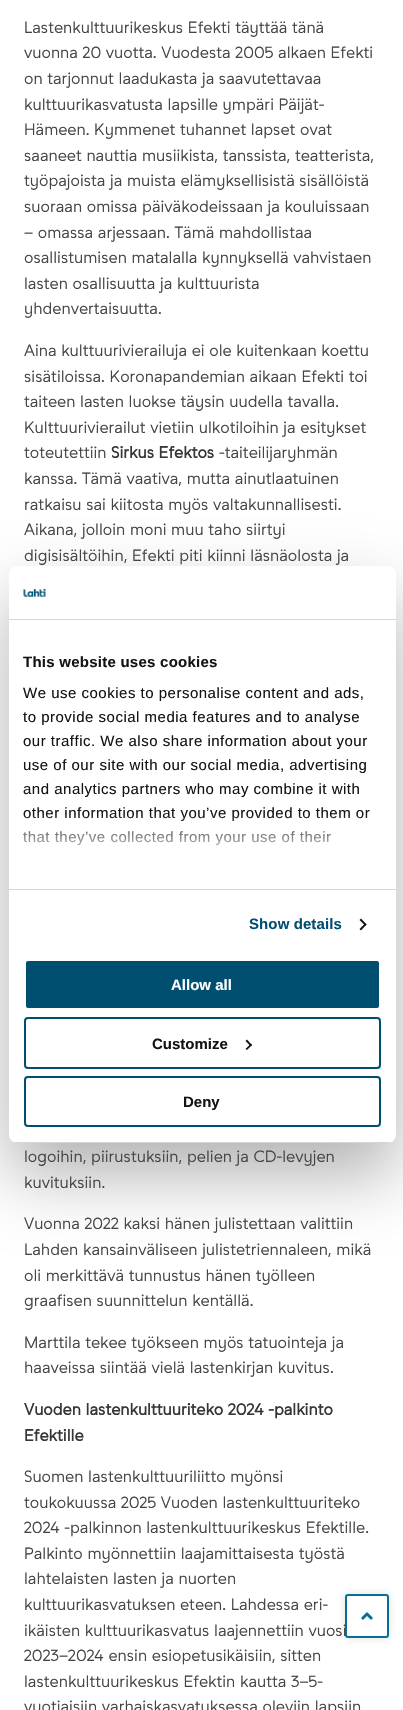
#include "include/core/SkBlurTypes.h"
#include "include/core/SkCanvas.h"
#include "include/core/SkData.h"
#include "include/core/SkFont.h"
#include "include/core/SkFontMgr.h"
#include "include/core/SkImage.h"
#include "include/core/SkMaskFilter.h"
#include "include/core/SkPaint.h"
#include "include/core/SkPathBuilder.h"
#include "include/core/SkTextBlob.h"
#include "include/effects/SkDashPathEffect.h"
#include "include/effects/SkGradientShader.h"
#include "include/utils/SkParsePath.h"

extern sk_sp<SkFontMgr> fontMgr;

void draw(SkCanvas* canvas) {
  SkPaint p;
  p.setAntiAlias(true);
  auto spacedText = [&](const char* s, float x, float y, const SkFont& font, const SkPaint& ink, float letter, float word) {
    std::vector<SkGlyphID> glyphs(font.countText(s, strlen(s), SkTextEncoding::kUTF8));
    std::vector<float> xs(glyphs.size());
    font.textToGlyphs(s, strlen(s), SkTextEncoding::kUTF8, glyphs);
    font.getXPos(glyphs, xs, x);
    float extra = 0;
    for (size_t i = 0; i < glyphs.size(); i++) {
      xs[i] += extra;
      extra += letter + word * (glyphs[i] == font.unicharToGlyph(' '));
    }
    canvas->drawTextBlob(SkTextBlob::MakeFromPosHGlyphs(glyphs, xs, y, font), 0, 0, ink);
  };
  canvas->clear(SK_ColorWHITE);
  p.setColor(SkColorSetARGB(77, 0, 0, 0));
  p.setMaskFilter(SkMaskFilter::MakeBlur(kNormal_SkBlurStyle, 34));
  canvas->drawRoundRect(SkRect::MakeLTRB(9, 598, 396, 1175), 8, 8, p);
  p.setMaskFilter(nullptr);
  p.setColor(SK_ColorWHITE);
  canvas->drawRoundRect(SkRect::MakeLTRB(9, 566, 396, 1143), 8, 8, p);
  p.setColor(SkColorSetRGB(214, 214, 214));
  canvas->drawRect(SkRect::MakeLTRB(9, 619, 396, 620), p);
  canvas->drawImageRect(SkImages::DeferredFromEncodedData(SkData::MakeFromFileName("images/1.png")), SkRect::MakeLTRB(23, 588, 46, 598), SkSamplingOptions());
  canvas->drawRect(SkRect::MakeLTRB(9, 889, 396, 890), p);
  p.setColor(SkColorSetRGB(20, 20, 20));
  canvas->drawPath(SkPathBuilder().moveTo(361, 918.5f).lineTo(366.5f, 924.5f).lineTo(365.5f, 926).lineTo(359.5f, 920).close().detach(), p);
  canvas->drawPath(SkPathBuilder().moveTo(365.5f, 923).lineTo(366.5f, 924.5f).lineTo(361, 930.5f).lineTo(359.5f, 929).close().detach(), p);
  canvas->save();
  canvas->clipPath(SkPathBuilder().moveTo(17, 566).lineTo(388, 566).cubicTo(392.5f, 566, 396, 569.5f, 396, 574).lineTo(396, 1135).cubicTo(396, 1139.5f, 392.5f, 1143, 388, 1143).lineTo(17, 1143).cubicTo(12.5f, 1143, 9, 1139.5f, 9, 1135).lineTo(9, 574).cubicTo(9, 569.5f, 12.5f, 566, 17, 566).close().detach(), true);
  p.setColor(SkColorSetRGB(214, 214, 214));
  canvas->drawRect(SkRect::MakeLTRB(9, 1142, 396, 1143), p);
  canvas->restore();
  p.setColor(SkColorSetRGB(0, 79, 113));
  canvas->drawRoundRect(SkRect::MakeLTRB(25, 960, 380, 1009), 3, 3, p);
  p.setStyle(SkPaint::kStroke_Style);
  p.setStrokeWidth(2);
  p.setColor(SK_ColorWHITE);
  canvas->drawRoundRect(SkRect::MakeLTRB(25, 960, 380, 1009), 3, 3, p);
  p.setColor(SkColorSetRGB(0, 79, 113));
  canvas->drawRoundRect(SkRect::MakeLTRB(25, 1018, 380, 1068), 3, 3, p);
  p.setStyle(SkPaint::kFill_Style);
  p.setColor(SkColorSetRGB(20, 20, 20));
  canvas->drawPath(SkPathBuilder().moveTo(247, 1039.5f).lineTo(252, 1045).lineTo(251, 1046.5f).lineTo(245.5f, 1041).close().detach(), p);
  canvas->drawPath(SkPathBuilder().moveTo(251, 1043.5f).lineTo(252, 1045).lineTo(247, 1050).lineTo(245.5f, 1049).close().detach(), p);
  p.setStyle(SkPaint::kStroke_Style);
  p.setColor(SkColorSetRGB(0, 79, 113));
  canvas->drawRoundRect(SkRect::MakeLTRB(25, 1077, 380, 1126), 3, 3, p);
  p.setStyle(SkPaint::kFill_Style);
  p.setColor(SkColorSetARGB(64, 122, 122, 122));
  p.setMaskFilter(SkMaskFilter::MakeBlur(kNormal_SkBlurStyle, 4));
  canvas->drawRoundRect(SkRect::MakeLTRB(345, 1594, 389, 1638), 3, 3, p);
  p.setMaskFilter(nullptr);
  SkFont font1(fontMgr->matchFamilyStyle("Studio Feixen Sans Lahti", SkFontStyle::Normal()), 16);
  font1.setSubpixel(true);
  p.setColor(SkColorSetRGB(69, 69, 69));
  canvas->drawString("Lastenkulttuurikeskus Efekti täyttää tänä", 24, 33, font1, p);
  canvas->drawString("vuonna 20 vuotta. Vuodesta 2005 alkaen Efekti", 24, 58, font1, p);
  canvas->drawString("on tarjonnut laadukasta ja saavutettavaa", 24, 84, font1, p);
  canvas->drawString("kulttuurikasvatusta lapsille ympäri Päijät-", 24, 110, font1, p);
  canvas->drawString("Hämeen. Kymmenet tuhannet lapset ovat", 24, 135, font1, p);
  canvas->drawString("saaneet nauttia musiikista, tanssista, teatterista,", 24, 161, font1, p);
  canvas->drawString("työpajoista ja muista elämyksellisistä sisällöistä", 24, 186, font1, p);
  canvas->drawString("suoraan omissa päiväkodeissaan ja kouluissaan", 24, 212, font1, p);
  canvas->drawString("– omassa arjessaan. Tämä mahdollistaa", 24, 238, font1, p);
  canvas->drawString("osallistumisen matalalla kynnyksellä vahvistaen", 24, 263, font1, p);
  canvas->drawString("lasten osallisuutta ja kulttuurista", 24, 289, font1, p);
  canvas->drawString("yhdenvertaisuutta.", 24, 314, font1, p);
  canvas->drawString("Aina kulttuurivierailuja ei ole kuitenkaan koettu", 24, 356, font1, p);
  canvas->drawString("sisätiloissa. Koronapandemian aikaan Efekti toi", 24, 382, font1, p);
  canvas->drawString("taiteen lasten luokse täysin uudella tavalla.", 24, 407, font1, p);
  canvas->drawString("Kulttuurivierailut vietiin ulkotiloihin ja esitykset", 24, 433, font1, p);
  canvas->drawString("toteutettiin", 24, 458, font1, p);
  SkFont font2(fontMgr->matchFamilyStyle("Studio Feixen Sans Lahti", SkFontStyle::Bold()), 16);
  font2.setSubpixel(true);
  p.setColor(SkColorSetRGB(54, 54, 54));
  canvas->drawString("Sirkus Efektos", 111, 458, font2, p);
  p.setColor(SkColorSetRGB(69, 69, 69));
  canvas->drawString("-taiteilijaryhmän", 219, 458, font1, p);
  canvas->drawString("kanssa. Tämä vaativa, mutta ainutlaatuinen", 24, 484, font1, p);
  canvas->drawString("ratkaisu sai kiitosta myös valtakunnallisesti.", 24, 510, font1, p);
  canvas->drawString("Aikana, jolloin moni muu taho siirtyi", 24, 535, font1, p);
  canvas->drawString("digisisältöihin, Efekti piti kiinni läsnäolosta ja", 24, 561, font1, p);
  canvas->drawString("logoihin, piirustuksiin, pelien ja CD-levyjen", 24, 1162, font1, p);
  canvas->drawString("kuvituksiin.", 24, 1188, font1, p);
  canvas->drawString("Vuonna 2022 kaksi hänen julistettaan valittiin", 24, 1229, font1, p);
  canvas->drawString("Lahden kansainväliseen julistetriennaleen, mikä", 24, 1255, font1, p);
  canvas->drawString("oli merkittävä tunnustus hänen työlleen", 24, 1281, font1, p);
  canvas->drawString("graafisen suunnittelun kentällä.", 24, 1306, font1, p);
  canvas->drawString("Marttila tekee työkseen myös tatuointeja ja", 24, 1348, font1, p);
  canvas->drawString("haaveissa siintää vielä lastenkirjan kuvitus.", 24, 1373, font1, p);
  p.setColor(SkColorSetRGB(54, 54, 54));
  canvas->drawString("Vuoden lastenkulttuuriteko 2024 -palkinto", 24, 1415, font2, p);
  canvas->drawString("Efektille", 24, 1441, font2, p);
  p.setColor(SkColorSetRGB(69, 69, 69));
  canvas->drawString("Suomen lastenkulttuuriliitto myönsi", 24, 1482, font1, p);
  canvas->drawString("toukokuussa 2025 Vuoden lastenkulttuuriteko", 24, 1508, font1, p);
  canvas->drawString("2024 -palkinnon lastenkulttuurikeskus Efektille.", 24, 1533, font1, p);
  canvas->drawString("Palkinto myönnettiin laajamittaisesta työstä", 24, 1559, font1, p);
  canvas->drawString("lahtelaisten lasten ja nuorten", 24, 1584, font1, p);
  canvas->drawString("kulttuurikasvatuksen eteen. Lahdessa eri-", 24, 1610, font1, p);
  canvas->drawString("ikäisten kulttuurikasvatus laajennettiin vuosi", 24, 1636, font1, p);
  canvas->drawString("2023–2024 ensin esiopetusikäisiin, sitten", 24, 1661, font1, p);
  canvas->drawString("lastenkulttuurikeskus Efektin kautta 3–5-", 24, 1687, font1, p);
  canvas->drawString("vuotiaisiin varhaiskasvatuksessa oleviin lapsiin", 24, 1712, font1, p);
  SkFont font3(fontMgr->matchFamilyStyle("Liberation Sans", SkFontStyle::Bold()), 15);
  font3.setSubpixel(true);
  p.setColor(SkColorSetRGB(20, 20, 20));
  spacedText("This website uses cookies", 23, 667, font3, p, 0.25f, 0);
  SkFont font4(fontMgr->matchFamilyStyle("Liberation Sans", SkFontStyle::Normal()), 15);
  font4.setSubpixel(true);
  spacedText("We use cookies to personalise content and ads,", 23, 698, font4, p, 0.5f, 0);
  spacedText("to provide social media features and to analyse", 23, 722, font4, p, 0.5f, 0);
  spacedText("our traffic. We also share information about your", 23, 746, font4, p, 0.5f, 0);
  spacedText("use of our site with our social media, advertising", 23, 770, font4, p, 0.5f, 0);
  spacedText("and analytics partners who may combine it with", 23, 794, font4, p, 0.5f, 0);
  spacedText("other information that you’ve provided to them or", 23, 818, font4, p, 0.5f, 0);
  spacedText("that they’ve collected from your use of their", 23, 842, font4, p, 0.5f, 0);
  {
    const SkColor colors[] = {SK_ColorWHITE, SkColorSetARGB(204, 255, 255, 255), SkColorSetARGB(0, 255, 255, 255)};
    const float stops[] = {0, 0.5f, 1};
    const SkPoint ends[] = {{196, 889}, {196, 814}};
    p.setShader(SkGradientShader::MakeLinear(ends, colors, stops, 3, SkTileMode::kClamp));
    p.setAlpha(255);
  }
  canvas->drawRect(SkRect::MakeLTRB(23, 815, 367, 846), p);
  p.setShader(nullptr);
  p.setColor(SkColorSetRGB(0, 79, 113));
  spacedText("Show details", 249, 929, font3, p, 0.1f, 0);
  p.setColor(SK_ColorWHITE);
  canvas->drawString("Allow all", 171, 990, font3, p);
  p.setColor(SkColorSetRGB(20, 20, 20));
  canvas->drawString("Customize", 152, 1049, font3, p);
  canvas->drawString("Deny", 183, 1107, font3, p);
  p.setColor(SK_ColorWHITE);
  canvas->drawRoundRect(SkRect::MakeLTRB(346, 1595, 388, 1637), 2, 2, p);
  p.setStyle(SkPaint::kStroke_Style);
  p.setColor(SkColorSetRGB(5, 112, 148));
  canvas->drawRoundRect(SkRect::MakeLTRB(346, 1595, 388, 1637), 2, 2, p);
  canvas->drawImageRect(SkImages::DeferredFromEncodedData(SkData::MakeFromFileName("images/2.png")), SkRect::MakeLTRB(361, 1612, 373, 1620), SkSamplingOptions());
}
